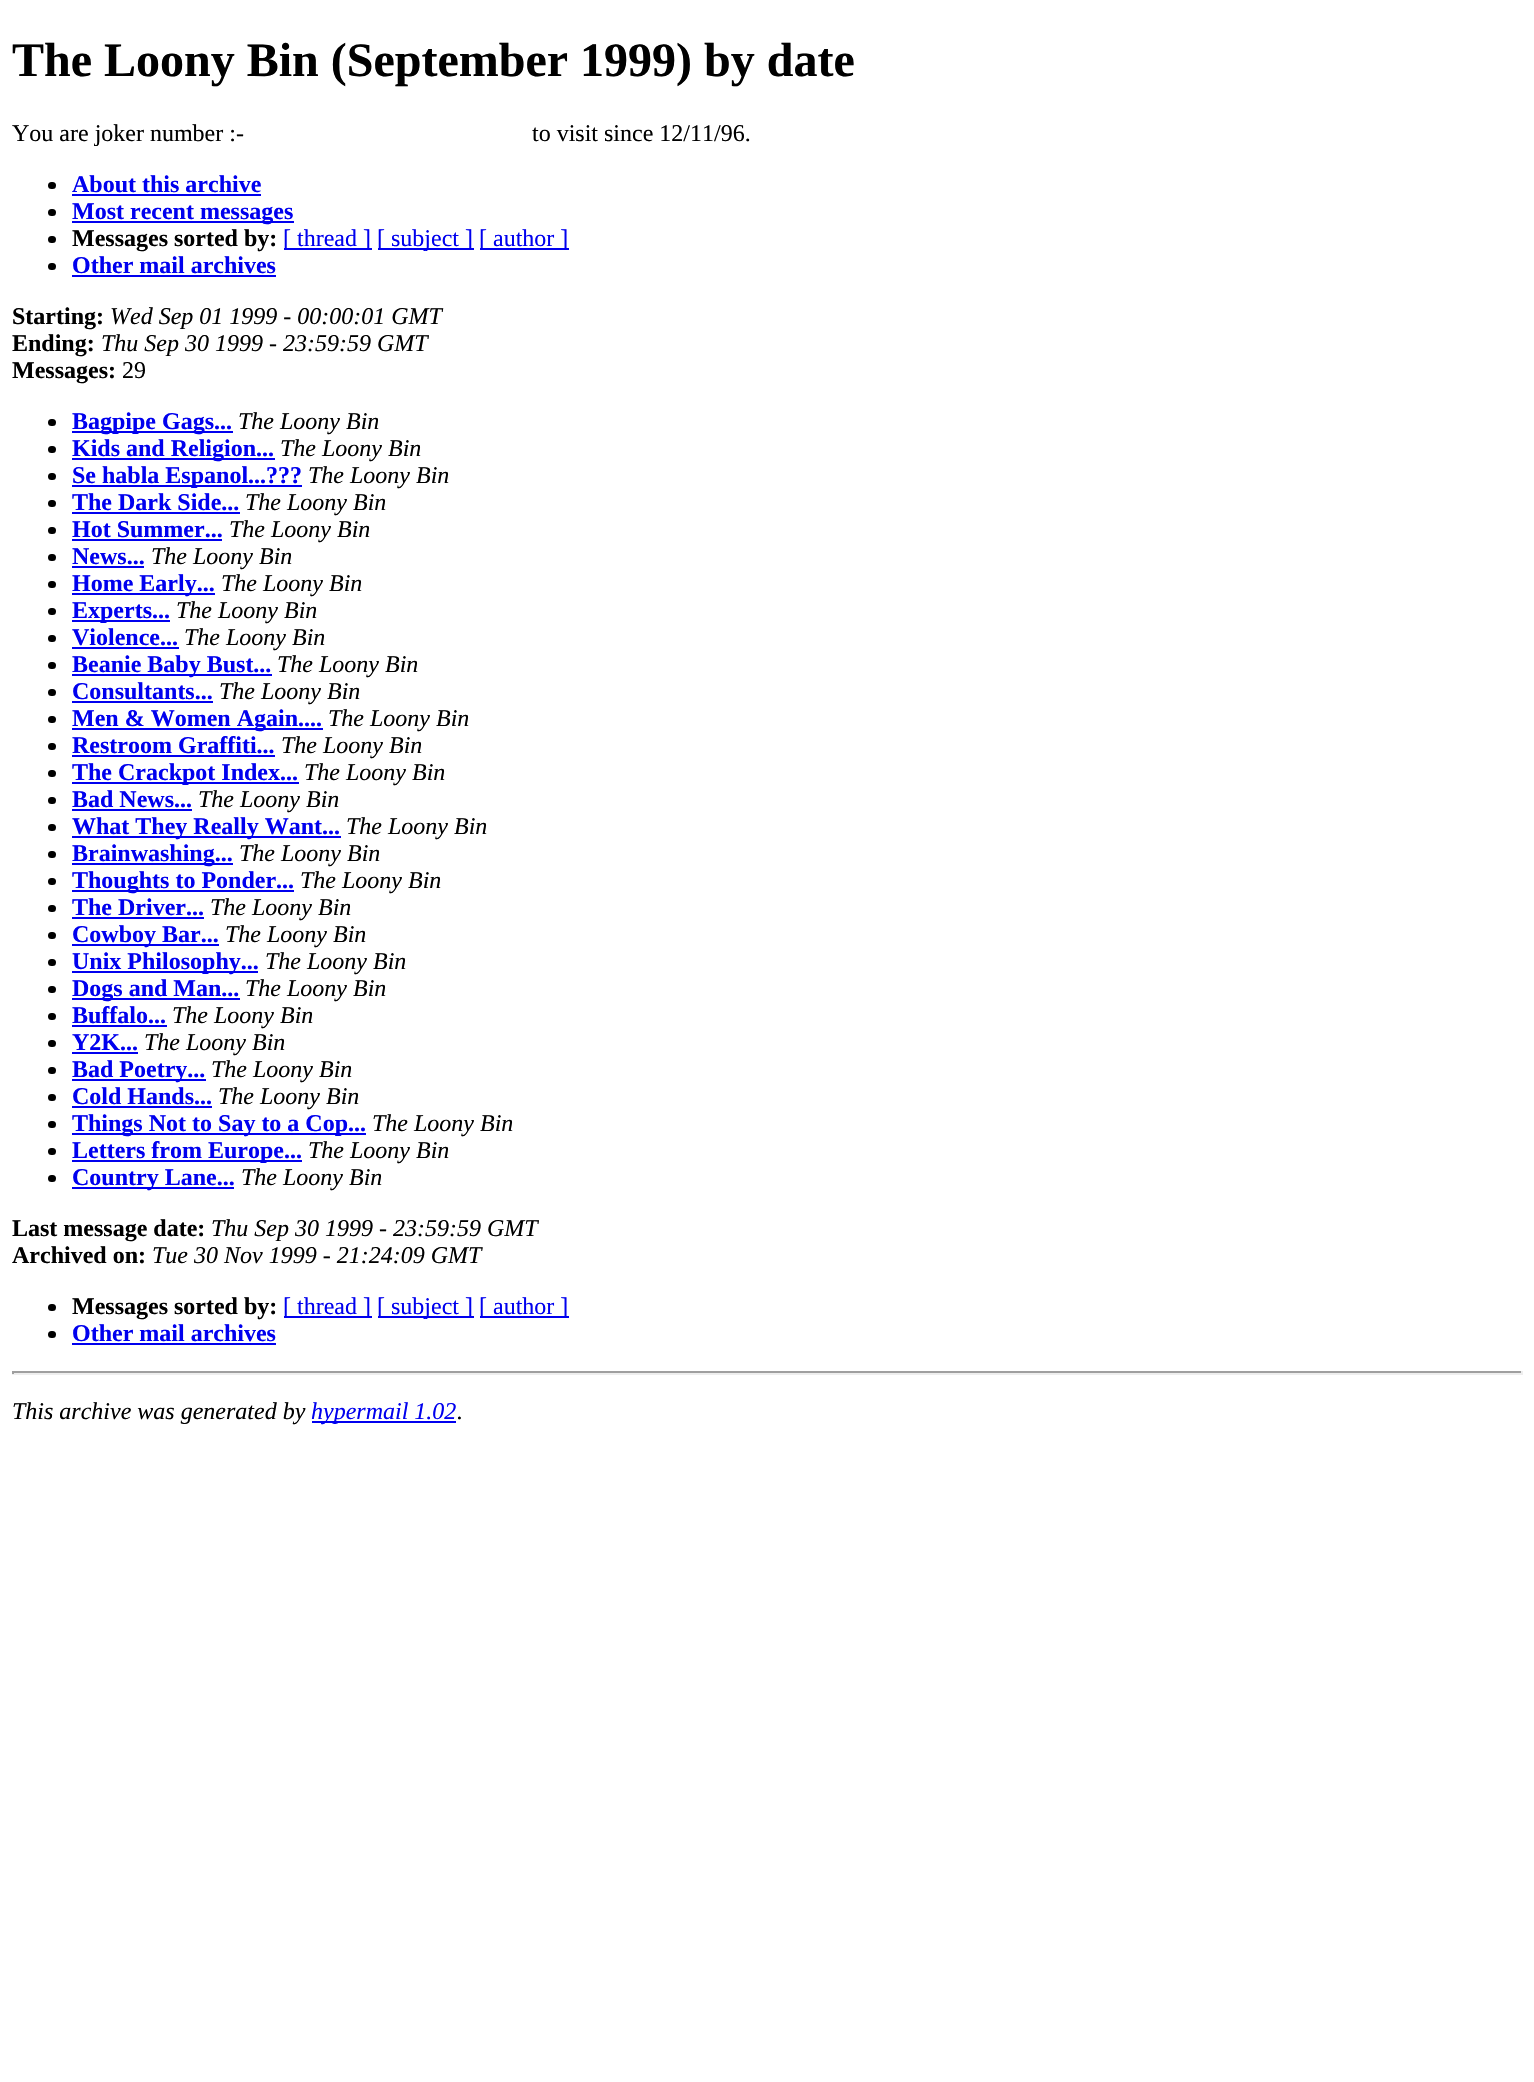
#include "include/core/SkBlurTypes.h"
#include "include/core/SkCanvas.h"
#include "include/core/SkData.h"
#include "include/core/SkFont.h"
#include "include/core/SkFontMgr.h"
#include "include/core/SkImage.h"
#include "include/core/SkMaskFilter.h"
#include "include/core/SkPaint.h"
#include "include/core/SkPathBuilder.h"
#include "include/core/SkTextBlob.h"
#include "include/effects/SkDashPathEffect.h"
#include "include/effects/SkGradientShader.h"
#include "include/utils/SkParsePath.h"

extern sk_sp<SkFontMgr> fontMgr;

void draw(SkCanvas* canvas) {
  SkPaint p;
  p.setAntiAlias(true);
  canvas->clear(SK_ColorWHITE);
  p.setColor(SK_ColorBLACK);
  canvas->drawRoundRect(SkRect::MakeLTRB(48, 182, 56, 189), 3.5f, 3.5f, p);
  p.setColor(SkColorSetRGB(0, 0, 238));
  canvas->drawRect(SkRect::MakeLTRB(72, 194, 261, 196), p);
  p.setColor(SK_ColorBLACK);
  canvas->drawRoundRect(SkRect::MakeLTRB(48, 209, 56, 216), 3.5f, 3.5f, p);
  p.setColor(SkColorSetRGB(0, 0, 238));
  canvas->drawRect(SkRect::MakeLTRB(72, 221, 294, 223), p);
  p.setColor(SK_ColorBLACK);
  canvas->drawRoundRect(SkRect::MakeLTRB(48, 236, 56, 243), 3.5f, 3.5f, p);
  p.setColor(SkColorSetRGB(0, 0, 238));
  canvas->drawRect(SkRect::MakeLTRB(284, 248, 372, 250), p);
  canvas->drawRect(SkRect::MakeLTRB(378, 248, 474, 250), p);
  canvas->drawRect(SkRect::MakeLTRB(480, 248, 569, 250), p);
  p.setColor(SK_ColorBLACK);
  canvas->drawRoundRect(SkRect::MakeLTRB(48, 263, 56, 270), 3.5f, 3.5f, p);
  p.setColor(SkColorSetRGB(0, 0, 238));
  canvas->drawRect(SkRect::MakeLTRB(72, 275, 276, 277), p);
  p.setColor(SK_ColorBLACK);
  canvas->drawRoundRect(SkRect::MakeLTRB(48, 419, 56, 426), 3.5f, 3.5f, p);
  p.setColor(SkColorSetRGB(0, 0, 238));
  canvas->drawRect(SkRect::MakeLTRB(72, 431, 233, 433), p);
  p.setColor(SK_ColorBLACK);
  canvas->drawRoundRect(SkRect::MakeLTRB(48, 446, 56, 453), 3.5f, 3.5f, p);
  p.setColor(SkColorSetRGB(0, 0, 238));
  canvas->drawRect(SkRect::MakeLTRB(72, 458, 275, 460), p);
  p.setColor(SK_ColorBLACK);
  canvas->drawRoundRect(SkRect::MakeLTRB(48, 473, 56, 480), 3.5f, 3.5f, p);
  p.setColor(SkColorSetRGB(0, 0, 238));
  canvas->drawRect(SkRect::MakeLTRB(72, 485, 302, 487), p);
  p.setColor(SK_ColorBLACK);
  canvas->drawRoundRect(SkRect::MakeLTRB(48, 500, 56, 507), 3.5f, 3.5f, p);
  p.setColor(SkColorSetRGB(0, 0, 238));
  canvas->drawRect(SkRect::MakeLTRB(72, 512, 240, 514), p);
  p.setColor(SK_ColorBLACK);
  canvas->drawRoundRect(SkRect::MakeLTRB(48, 527, 56, 534), 3.5f, 3.5f, p);
  p.setColor(SkColorSetRGB(0, 0, 238));
  canvas->drawRect(SkRect::MakeLTRB(72, 539, 222, 541), p);
  p.setColor(SK_ColorBLACK);
  canvas->drawRoundRect(SkRect::MakeLTRB(48, 554, 56, 561), 3.5f, 3.5f, p);
  p.setColor(SkColorSetRGB(0, 0, 238));
  canvas->drawRect(SkRect::MakeLTRB(72, 566, 144, 568), p);
  p.setColor(SK_ColorBLACK);
  canvas->drawRoundRect(SkRect::MakeLTRB(48, 581, 56, 588), 3.5f, 3.5f, p);
  p.setColor(SkColorSetRGB(0, 0, 238));
  canvas->drawRect(SkRect::MakeLTRB(72, 593, 215, 595), p);
  p.setColor(SK_ColorBLACK);
  canvas->drawRoundRect(SkRect::MakeLTRB(48, 608, 56, 615), 3.5f, 3.5f, p);
  p.setColor(SkColorSetRGB(0, 0, 238));
  canvas->drawRect(SkRect::MakeLTRB(72, 620, 170, 622), p);
  p.setColor(SK_ColorBLACK);
  canvas->drawRoundRect(SkRect::MakeLTRB(48, 635, 56, 642), 3.5f, 3.5f, p);
  p.setColor(SkColorSetRGB(0, 0, 238));
  canvas->drawRect(SkRect::MakeLTRB(72, 647, 179, 649), p);
  p.setColor(SK_ColorBLACK);
  canvas->drawRoundRect(SkRect::MakeLTRB(48, 662, 56, 669), 3.5f, 3.5f, p);
  p.setColor(SkColorSetRGB(0, 0, 238));
  canvas->drawRect(SkRect::MakeLTRB(72, 674, 272, 676), p);
  p.setColor(SK_ColorBLACK);
  canvas->drawRoundRect(SkRect::MakeLTRB(48, 689, 56, 696), 3.5f, 3.5f, p);
  p.setColor(SkColorSetRGB(0, 0, 238));
  canvas->drawRect(SkRect::MakeLTRB(72, 701, 213, 703), p);
  p.setColor(SK_ColorBLACK);
  canvas->drawRoundRect(SkRect::MakeLTRB(48, 716, 56, 723), 3.5f, 3.5f, p);
  p.setColor(SkColorSetRGB(0, 0, 238));
  canvas->drawRect(SkRect::MakeLTRB(72, 728, 323, 730), p);
  p.setColor(SK_ColorBLACK);
  canvas->drawRoundRect(SkRect::MakeLTRB(48, 743, 56, 750), 3.5f, 3.5f, p);
  p.setColor(SkColorSetRGB(0, 0, 238));
  canvas->drawRect(SkRect::MakeLTRB(72, 755, 275, 757), p);
  p.setColor(SK_ColorBLACK);
  canvas->drawRoundRect(SkRect::MakeLTRB(48, 770, 56, 777), 3.5f, 3.5f, p);
  p.setColor(SkColorSetRGB(0, 0, 238));
  canvas->drawRect(SkRect::MakeLTRB(72, 782, 299, 784), p);
  p.setColor(SK_ColorBLACK);
  canvas->drawRoundRect(SkRect::MakeLTRB(48, 797, 56, 804), 3.5f, 3.5f, p);
  p.setColor(SkColorSetRGB(0, 0, 238));
  canvas->drawRect(SkRect::MakeLTRB(72, 809, 192, 811), p);
  p.setColor(SK_ColorBLACK);
  canvas->drawRoundRect(SkRect::MakeLTRB(48, 824, 56, 831), 3.5f, 3.5f, p);
  p.setColor(SkColorSetRGB(0, 0, 238));
  canvas->drawRect(SkRect::MakeLTRB(72, 836, 341, 838), p);
  p.setColor(SK_ColorBLACK);
  canvas->drawRoundRect(SkRect::MakeLTRB(48, 851, 56, 858), 3.5f, 3.5f, p);
  p.setColor(SkColorSetRGB(0, 0, 238));
  canvas->drawRect(SkRect::MakeLTRB(72, 863, 233, 865), p);
  p.setColor(SK_ColorBLACK);
  canvas->drawRoundRect(SkRect::MakeLTRB(48, 878, 56, 885), 3.5f, 3.5f, p);
  p.setColor(SkColorSetRGB(0, 0, 238));
  canvas->drawRect(SkRect::MakeLTRB(72, 890, 294, 892), p);
  p.setColor(SK_ColorBLACK);
  canvas->drawRoundRect(SkRect::MakeLTRB(48, 905, 56, 912), 3.5f, 3.5f, p);
  p.setColor(SkColorSetRGB(0, 0, 238));
  canvas->drawRect(SkRect::MakeLTRB(72, 917, 204, 919), p);
  p.setColor(SK_ColorBLACK);
  canvas->drawRoundRect(SkRect::MakeLTRB(48, 932, 56, 939), 3.5f, 3.5f, p);
  p.setColor(SkColorSetRGB(0, 0, 238));
  canvas->drawRect(SkRect::MakeLTRB(72, 944, 219, 946), p);
  p.setColor(SK_ColorBLACK);
  canvas->drawRoundRect(SkRect::MakeLTRB(48, 959, 56, 966), 3.5f, 3.5f, p);
  p.setColor(SkColorSetRGB(0, 0, 238));
  canvas->drawRect(SkRect::MakeLTRB(72, 971, 258, 973), p);
  p.setColor(SK_ColorBLACK);
  canvas->drawRoundRect(SkRect::MakeLTRB(48, 986, 56, 993), 3.5f, 3.5f, p);
  p.setColor(SkColorSetRGB(0, 0, 238));
  canvas->drawRect(SkRect::MakeLTRB(72, 998, 240, 1000), p);
  p.setColor(SK_ColorBLACK);
  canvas->drawRoundRect(SkRect::MakeLTRB(48, 1013, 56, 1020), 3.5f, 3.5f, p);
  p.setColor(SkColorSetRGB(0, 0, 238));
  canvas->drawRect(SkRect::MakeLTRB(72, 1025, 167, 1027), p);
  p.setColor(SK_ColorBLACK);
  canvas->drawRoundRect(SkRect::MakeLTRB(48, 1040, 56, 1047), 3.5f, 3.5f, p);
  p.setColor(SkColorSetRGB(0, 0, 238));
  canvas->drawRect(SkRect::MakeLTRB(72, 1052, 138, 1054), p);
  p.setColor(SK_ColorBLACK);
  canvas->drawRoundRect(SkRect::MakeLTRB(48, 1067, 56, 1074), 3.5f, 3.5f, p);
  p.setColor(SkColorSetRGB(0, 0, 238));
  canvas->drawRect(SkRect::MakeLTRB(72, 1079, 206, 1081), p);
  p.setColor(SK_ColorBLACK);
  canvas->drawRoundRect(SkRect::MakeLTRB(48, 1094, 56, 1101), 3.5f, 3.5f, p);
  p.setColor(SkColorSetRGB(0, 0, 238));
  canvas->drawRect(SkRect::MakeLTRB(72, 1106, 212, 1108), p);
  p.setColor(SK_ColorBLACK);
  canvas->drawRoundRect(SkRect::MakeLTRB(48, 1121, 56, 1128), 3.5f, 3.5f, p);
  p.setColor(SkColorSetRGB(0, 0, 238));
  canvas->drawRect(SkRect::MakeLTRB(72, 1133, 366, 1135), p);
  p.setColor(SK_ColorBLACK);
  canvas->drawRoundRect(SkRect::MakeLTRB(48, 1148, 56, 1155), 3.5f, 3.5f, p);
  p.setColor(SkColorSetRGB(0, 0, 238));
  canvas->drawRect(SkRect::MakeLTRB(72, 1160, 302, 1162), p);
  p.setColor(SK_ColorBLACK);
  canvas->drawRoundRect(SkRect::MakeLTRB(48, 1175, 56, 1182), 3.5f, 3.5f, p);
  p.setColor(SkColorSetRGB(0, 0, 238));
  canvas->drawRect(SkRect::MakeLTRB(72, 1187, 234, 1189), p);
  p.setColor(SK_ColorBLACK);
  canvas->drawRoundRect(SkRect::MakeLTRB(48, 1304, 56, 1311), 3.5f, 3.5f, p);
  p.setColor(SkColorSetRGB(0, 0, 238));
  canvas->drawRect(SkRect::MakeLTRB(284, 1316, 372, 1318), p);
  canvas->drawRect(SkRect::MakeLTRB(378, 1316, 474, 1318), p);
  canvas->drawRect(SkRect::MakeLTRB(480, 1316, 569, 1318), p);
  p.setColor(SK_ColorBLACK);
  canvas->drawRoundRect(SkRect::MakeLTRB(48, 1331, 56, 1338), 3.5f, 3.5f, p);
  p.setColor(SkColorSetRGB(0, 0, 238));
  canvas->drawRect(SkRect::MakeLTRB(72, 1343, 276, 1345), p);
  p.setColor(SkColorSetRGB(159, 159, 159));
  canvas->drawRect(SkRect::MakeLTRB(12, 1371, 1523, 1373), p);
  p.setColor(SkColorSetRGB(238, 238, 238));
  canvas->drawRect(SkRect::MakeLTRB(1521, 1371, 1523, 1374), p);
  canvas->drawRect(SkRect::MakeLTRB(12, 1373, 1523, 1375), p);
  p.setColor(SkColorSetRGB(159, 159, 159));
  canvas->drawRect(SkRect::MakeLTRB(12, 1371, 14, 1374), p);
  p.setColor(SkColorSetRGB(0, 0, 238));
  canvas->drawRect(SkRect::MakeLTRB(312, 1421, 456, 1423), p);
  SkFont font1(fontMgr->matchFamilyStyle("Liberation Serif", SkFontStyle::Bold()), 48);
  font1.setSubpixel(true);
  p.setColor(SK_ColorBLACK);
  canvas->drawString("The Loony Bin (September 1999) by date", 12, 76, font1, p);
  SkFont font2(fontMgr->matchFamilyStyle("Liberation Serif", SkFontStyle::Normal()), 24);
  font2.setSubpixel(true);
  canvas->drawString("You are joker number :-", 12, 141, font2, p);
  canvas->drawString("to visit since 12/11/96.", 532, 141, font2, p);
  SkFont font3(fontMgr->matchFamilyStyle("Liberation Serif", SkFontStyle::Bold()), 24);
  font3.setSubpixel(true);
  p.setColor(SkColorSetRGB(0, 0, 238));
  canvas->drawString("About this archive", 72, 192, font3, p);
  canvas->drawString("Most recent messages", 72, 219, font3, p);
  p.setColor(SK_ColorBLACK);
  canvas->drawString("Messages sorted by:", 72, 246, font3, p);
  p.setColor(SkColorSetRGB(0, 0, 238));
  canvas->drawString("[ thread ]", 283, 246, font2, p);
  canvas->drawString("[ subject ]", 377, 246, font2, p);
  canvas->drawString("[ author ]", 479, 246, font2, p);
  canvas->drawString("Other mail archives", 72, 273, font3, p);
  p.setColor(SK_ColorBLACK);
  canvas->drawString("Starting:", 12, 324, font3, p);
  SkFont font4(fontMgr->matchFamilyStyle("Liberation Serif", SkFontStyle::Italic()), 24);
  font4.setSubpixel(true);
  canvas->drawString("Wed Sep 01 1999 - 00:00:01 GMT", 110, 324, font4, p);
  canvas->drawString("Ending:", 12, 351, font3, p);
  canvas->drawString("Thu Sep 30 1999 - 23:59:59 GMT", 101, 351, font4, p);
  canvas->drawString("Messages:", 12, 378, font3, p);
  canvas->drawString("29", 122, 378, font2, p);
  p.setColor(SkColorSetRGB(0, 0, 238));
  canvas->drawString("Bagpipe Gags...", 72, 429, font3, p);
  p.setColor(SK_ColorBLACK);
  canvas->drawString("The Loony Bin", 238, 429, font4, p);
  p.setColor(SkColorSetRGB(0, 0, 238));
  canvas->drawString("Kids and Religion...", 72, 456, font3, p);
  p.setColor(SK_ColorBLACK);
  canvas->drawString("The Loony Bin", 280, 456, font4, p);
  p.setColor(SkColorSetRGB(0, 0, 238));
  canvas->drawString("Se habla Espanol...?\077?", 72, 483, font3, p);
  p.setColor(SK_ColorBLACK);
  canvas->drawString("The Loony Bin", 308, 483, font4, p);
  p.setColor(SkColorSetRGB(0, 0, 238));
  canvas->drawString("The Dark Side...", 72, 510, font3, p);
  p.setColor(SK_ColorBLACK);
  canvas->drawString("The Loony Bin", 245, 510, font4, p);
  p.setColor(SkColorSetRGB(0, 0, 238));
  canvas->drawString("Hot Summer...", 72, 537, font3, p);
  p.setColor(SK_ColorBLACK);
  canvas->drawString("The Loony Bin", 229, 537, font4, p);
  p.setColor(SkColorSetRGB(0, 0, 238));
  canvas->drawString("News...", 72, 564, font3, p);
  p.setColor(SK_ColorBLACK);
  canvas->drawString("The Loony Bin", 151, 564, font4, p);
  p.setColor(SkColorSetRGB(0, 0, 238));
  canvas->drawString("Home Early...", 72, 591, font3, p);
  p.setColor(SK_ColorBLACK);
  canvas->drawString("The Loony Bin", 221, 591, font4, p);
  p.setColor(SkColorSetRGB(0, 0, 238));
  canvas->drawString("Experts...", 72, 618, font3, p);
  p.setColor(SK_ColorBLACK);
  canvas->drawString("The Loony Bin", 176, 618, font4, p);
  p.setColor(SkColorSetRGB(0, 0, 238));
  canvas->drawString("Violence...", 72, 645, font3, p);
  p.setColor(SK_ColorBLACK);
  canvas->drawString("The Loony Bin", 184, 645, font4, p);
  p.setColor(SkColorSetRGB(0, 0, 238));
  canvas->drawString("Beanie Baby Bust...", 72, 672, font3, p);
  p.setColor(SK_ColorBLACK);
  canvas->drawString("The Loony Bin", 277, 672, font4, p);
  p.setColor(SkColorSetRGB(0, 0, 238));
  canvas->drawString("Consultants...", 72, 699, font3, p);
  p.setColor(SK_ColorBLACK);
  canvas->drawString("The Loony Bin", 219, 699, font4, p);
  p.setColor(SkColorSetRGB(0, 0, 238));
  canvas->drawString("Men & Women Again....", 72, 726, font3, p);
  p.setColor(SK_ColorBLACK);
  canvas->drawString("The Loony Bin", 328, 726, font4, p);
  p.setColor(SkColorSetRGB(0, 0, 238));
  canvas->drawString("Restroom Graffiti...", 72, 753, font3, p);
  p.setColor(SK_ColorBLACK);
  canvas->drawString("The Loony Bin", 281, 753, font4, p);
  p.setColor(SkColorSetRGB(0, 0, 238));
  canvas->drawString("The Crackpot Index...", 72, 780, font3, p);
  p.setColor(SK_ColorBLACK);
  canvas->drawString("The Loony Bin", 304, 780, font4, p);
  p.setColor(SkColorSetRGB(0, 0, 238));
  canvas->drawString("Bad News...", 72, 807, font3, p);
  p.setColor(SK_ColorBLACK);
  canvas->drawString("The Loony Bin", 198, 807, font4, p);
  p.setColor(SkColorSetRGB(0, 0, 238));
  canvas->drawString("What They Really Want...", 72, 834, font3, p);
  p.setColor(SK_ColorBLACK);
  canvas->drawString("The Loony Bin", 346, 834, font4, p);
  p.setColor(SkColorSetRGB(0, 0, 238));
  canvas->drawString("Brainwashing...", 72, 861, font3, p);
  p.setColor(SK_ColorBLACK);
  canvas->drawString("The Loony Bin", 239, 861, font4, p);
  p.setColor(SkColorSetRGB(0, 0, 238));
  canvas->drawString("Thoughts to Ponder...", 72, 888, font3, p);
  p.setColor(SK_ColorBLACK);
  canvas->drawString("The Loony Bin", 300, 888, font4, p);
  p.setColor(SkColorSetRGB(0, 0, 238));
  canvas->drawString("The Driver...", 72, 915, font3, p);
  p.setColor(SK_ColorBLACK);
  canvas->drawString("The Loony Bin", 210, 915, font4, p);
  p.setColor(SkColorSetRGB(0, 0, 238));
  canvas->drawString("Cowboy Bar...", 72, 942, font3, p);
  p.setColor(SK_ColorBLACK);
  canvas->drawString("The Loony Bin", 225, 942, font4, p);
  p.setColor(SkColorSetRGB(0, 0, 238));
  canvas->drawString("Unix Philosophy...", 72, 969, font3, p);
  p.setColor(SK_ColorBLACK);
  canvas->drawString("The Loony Bin", 265, 969, font4, p);
  p.setColor(SkColorSetRGB(0, 0, 238));
  canvas->drawString("Dogs and Man...", 72, 996, font3, p);
  p.setColor(SK_ColorBLACK);
  canvas->drawString("The Loony Bin", 245, 996, font4, p);
  p.setColor(SkColorSetRGB(0, 0, 238));
  canvas->drawString("Buffalo...", 72, 1023, font3, p);
  p.setColor(SK_ColorBLACK);
  canvas->drawString("The Loony Bin", 172, 1023, font4, p);
  p.setColor(SkColorSetRGB(0, 0, 238));
  canvas->drawString("Y2K...", 72, 1050, font3, p);
  p.setColor(SK_ColorBLACK);
  canvas->drawString("The Loony Bin", 144, 1050, font4, p);
  p.setColor(SkColorSetRGB(0, 0, 238));
  canvas->drawString("Bad Poetry...", 72, 1077, font3, p);
  p.setColor(SK_ColorBLACK);
  canvas->drawString("The Loony Bin", 211, 1077, font4, p);
  p.setColor(SkColorSetRGB(0, 0, 238));
  canvas->drawString("Cold Hands...", 72, 1104, font3, p);
  p.setColor(SK_ColorBLACK);
  canvas->drawString("The Loony Bin", 218, 1104, font4, p);
  p.setColor(SkColorSetRGB(0, 0, 238));
  canvas->drawString("Things Not to Say to a Cop...", 72, 1131, font3, p);
  p.setColor(SK_ColorBLACK);
  canvas->drawString("The Loony Bin", 372, 1131, font4, p);
  p.setColor(SkColorSetRGB(0, 0, 238));
  canvas->drawString("Letters from Europe...", 72, 1158, font3, p);
  p.setColor(SK_ColorBLACK);
  canvas->drawString("The Loony Bin", 308, 1158, font4, p);
  p.setColor(SkColorSetRGB(0, 0, 238));
  canvas->drawString("Country Lane...", 72, 1185, font3, p);
  p.setColor(SK_ColorBLACK);
  canvas->drawString("The Loony Bin", 241, 1185, font4, p);
  canvas->drawString("Last message date:", 12, 1236, font3, p);
  canvas->drawString("Thu Sep 30 1999 - 23:59:59 GMT", 211, 1236, font4, p);
  canvas->drawString("Archived on:", 12, 1263, font3, p);
  canvas->drawString("Tue 30 Nov 1999 - 21:24:09 GMT", 152, 1263, font4, p);
  canvas->drawString("Messages sorted by:", 72, 1314, font3, p);
  p.setColor(SkColorSetRGB(0, 0, 238));
  canvas->drawString("[ thread ]", 283, 1314, font2, p);
  canvas->drawString("[ subject ]", 377, 1314, font2, p);
  canvas->drawString("[ author ]", 479, 1314, font2, p);
  canvas->drawString("Other mail archives", 72, 1341, font3, p);
  p.setColor(SK_ColorBLACK);
  canvas->drawString("This archive was generated by", 12, 1419, font4, p);
  p.setColor(SkColorSetRGB(0, 0, 238));
  canvas->drawString("hypermail 1.02", 311, 1419, font4, p);
  p.setColor(SK_ColorBLACK);
  canvas->drawString(".", 457, 1419, font4, p);
}
